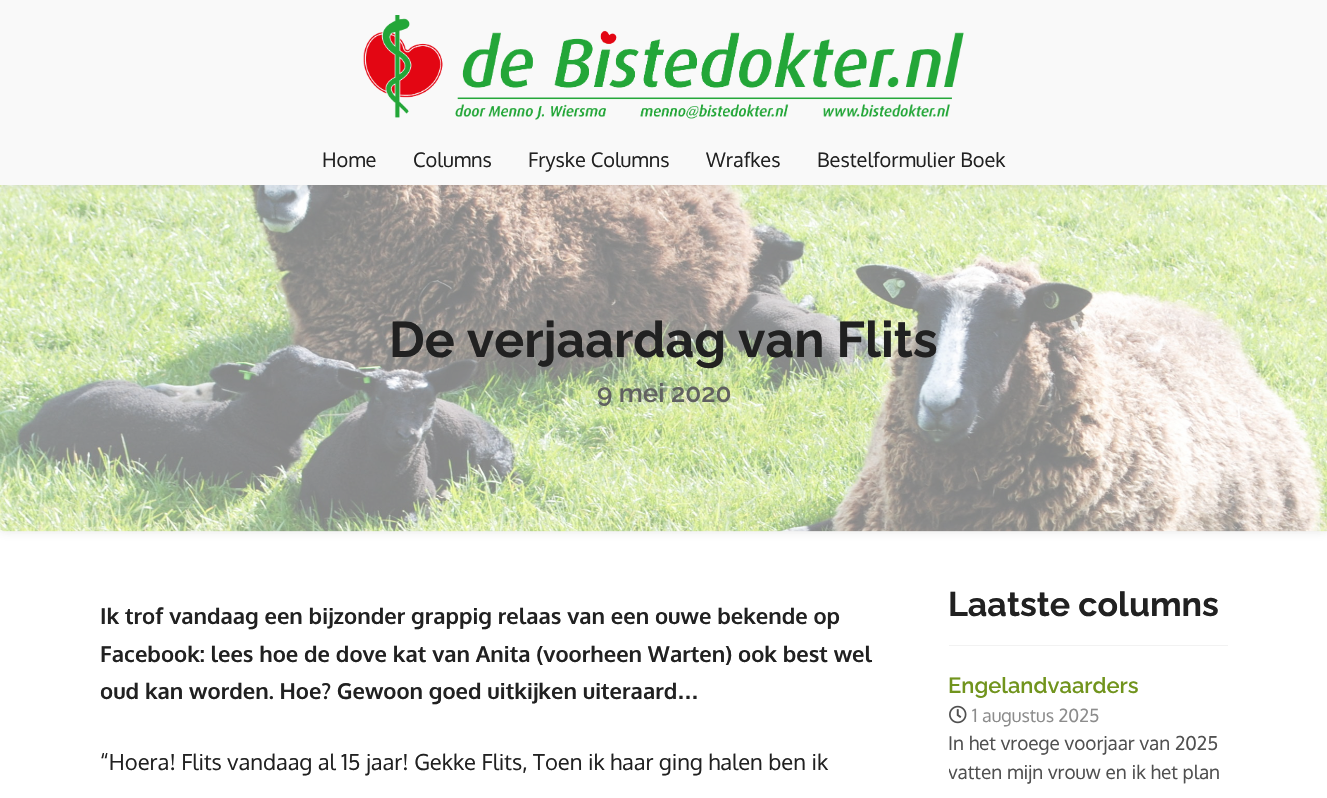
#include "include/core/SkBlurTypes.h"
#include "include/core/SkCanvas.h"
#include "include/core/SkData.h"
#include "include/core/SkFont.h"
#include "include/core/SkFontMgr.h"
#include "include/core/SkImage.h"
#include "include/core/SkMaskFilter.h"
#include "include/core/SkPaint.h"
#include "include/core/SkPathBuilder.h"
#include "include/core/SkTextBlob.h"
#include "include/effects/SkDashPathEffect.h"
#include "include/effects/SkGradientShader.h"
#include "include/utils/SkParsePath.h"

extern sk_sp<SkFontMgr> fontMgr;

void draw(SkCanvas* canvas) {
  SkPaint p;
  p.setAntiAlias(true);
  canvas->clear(SK_ColorWHITE);
  p.setColor(SkColorSetARGB(38, 83, 83, 83));
  p.setMaskFilter(SkMaskFilter::MakeBlur(kNormal_SkBlurStyle, 5));
  canvas->drawRect(SkRect::MakeLTRB(0, 185, 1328, 531), p);
  p.setMaskFilter(nullptr);
  canvas->drawImageRect(SkImages::DeferredFromEncodedData(SkData::MakeFromFileName("images/2.png")), SkRect::MakeLTRB(0, 185, 1327, 532), SkSamplingOptions());
  p.setMaskFilter(SkMaskFilter::MakeBlur(kNormal_SkBlurStyle, 5));
  canvas->drawRect(SkRect::MakeLTRB(0, 135, 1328, 185), p);
  p.setMaskFilter(nullptr);
  p.setColor(SkColorSetRGB(249, 249, 249));
  canvas->drawRect(SkRect::MakeLTRB(0, 0, 1327, 185), p);
  canvas->drawImageRect(SkImages::DeferredFromEncodedData(SkData::MakeFromFileName("images/1.png")), SkRect::MakeLTRB(363, 15, 964, 120), SkSamplingOptions());
  p.setColor(SkColorSetRGB(242, 242, 242));
  canvas->drawRect(SkRect::MakeLTRB(949, 645, 1228, 646), p);
  canvas->drawImageRect(SkImages::DeferredFromEncodedData(SkData::MakeFromFileName("images/3.png")), SkRect::MakeLTRB(949, 705, 967, 724), SkSamplingOptions());
  SkFont font1(fontMgr->matchFamilyStyle("Oxygen", SkFontStyle::Normal()), 20);
  font1.setSubpixel(true);
  p.setColor(SkColorSetRGB(33, 33, 33));
  canvas->drawString("Home", 322, 167, font1, p);
  canvas->drawString("Columns", 413, 167, font1, p);
  canvas->drawString("Fryske Columns", 528, 167, font1, p);
  canvas->drawString("Wrafkes", 706, 167, font1, p);
  canvas->drawString("Bestelformulier Boek", 817, 167, font1, p);
  SkFont font2(fontMgr->matchFamilyStyle("Raleway", SkFontStyle::Bold()), 50);
  font2.setSubpixel(true);
  canvas->drawString("De verjaardag van Flits", 389, 357, font2, p);
  SkFont font3(fontMgr->matchFamilyStyle("Raleway", SkFontStyle(600, SkFontStyle::kNormal_Width, SkFontStyle::kUpright_Slant)), 26);
  font3.setSubpixel(true);
  p.setColor(SkColorSetRGB(96, 96, 96));
  canvas->drawString("9 mei 2020", 597, 402, font3, p);
  SkFont font4(fontMgr->matchFamilyStyle("Oxygen", SkFontStyle::Bold()), 22);
  font4.setSubpixel(true);
  p.setColor(SkColorSetRGB(33, 33, 33));
  canvas->drawString("Ik trof vandaag een bijzonder grappig relaas van een ouwe bekende op", 100, 624, font4, p);
  canvas->drawString("Facebook: lees hoe de dove kat van Anita (voorheen Warten) ook best wel", 100, 662, font4, p);
  canvas->drawString("oud kan worden. Hoe? Gewoon goed uitkijken uiteraard", 100, 699, font4, p);
  SkFont font5(fontMgr->matchFamilyStyle("Liberation Sans", SkFontStyle::Bold()), 22);
  font5.setSubpixel(true);
  canvas->drawString("…", 677, 699, font5, p);
  SkFont font6(fontMgr->matchFamilyStyle("Oxygen", SkFontStyle::Normal()), 22);
  font6.setSubpixel(true);
  canvas->drawString("“Hoera! Flits vandaag al 15 jaar! Gekke Flits, Toen ik haar ging halen ben ik", 100, 770, font6, p);
  SkFont font7(fontMgr->matchFamilyStyle("Raleway", SkFontStyle::Bold()), 34);
  font7.setSubpixel(true);
  canvas->drawString("Laatste columns", 948, 616, font7, p);
  SkFont font8(fontMgr->matchFamilyStyle("Raleway", SkFontStyle(600, SkFontStyle::kNormal_Width, SkFontStyle::kUpright_Slant)), 22);
  font8.setSubpixel(true);
  p.setColor(SkColorSetRGB(113, 148, 29));
  canvas->drawString("Engelandvaarders", 948, 693, font8, p);
  SkFont font9(fontMgr->matchFamilyStyle("Oxygen", SkFontStyle::Normal()), 18);
  font9.setSubpixel(true);
  p.setColor(SkColorSetRGB(140, 140, 140));
  canvas->drawString("1 augustus 2025", 972, 722, font9, p);
  SkFont font10(fontMgr->matchFamilyStyle("Oxygen", SkFontStyle::Normal()), 19);
  font10.setSubpixel(true);
  p.setColor(SkColorSetRGB(80, 80, 80));
  canvas->drawString("In het vroege voorjaar van 2025", 948, 750, font10, p);
  canvas->save();
  canvas->clipRect(SkRect::MakeLTRB(949, 646, 1228, 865));
  canvas->drawString("vatten mijn vrouw en ik het plan", 948, 779, font10, p);
  canvas->restore();
}
